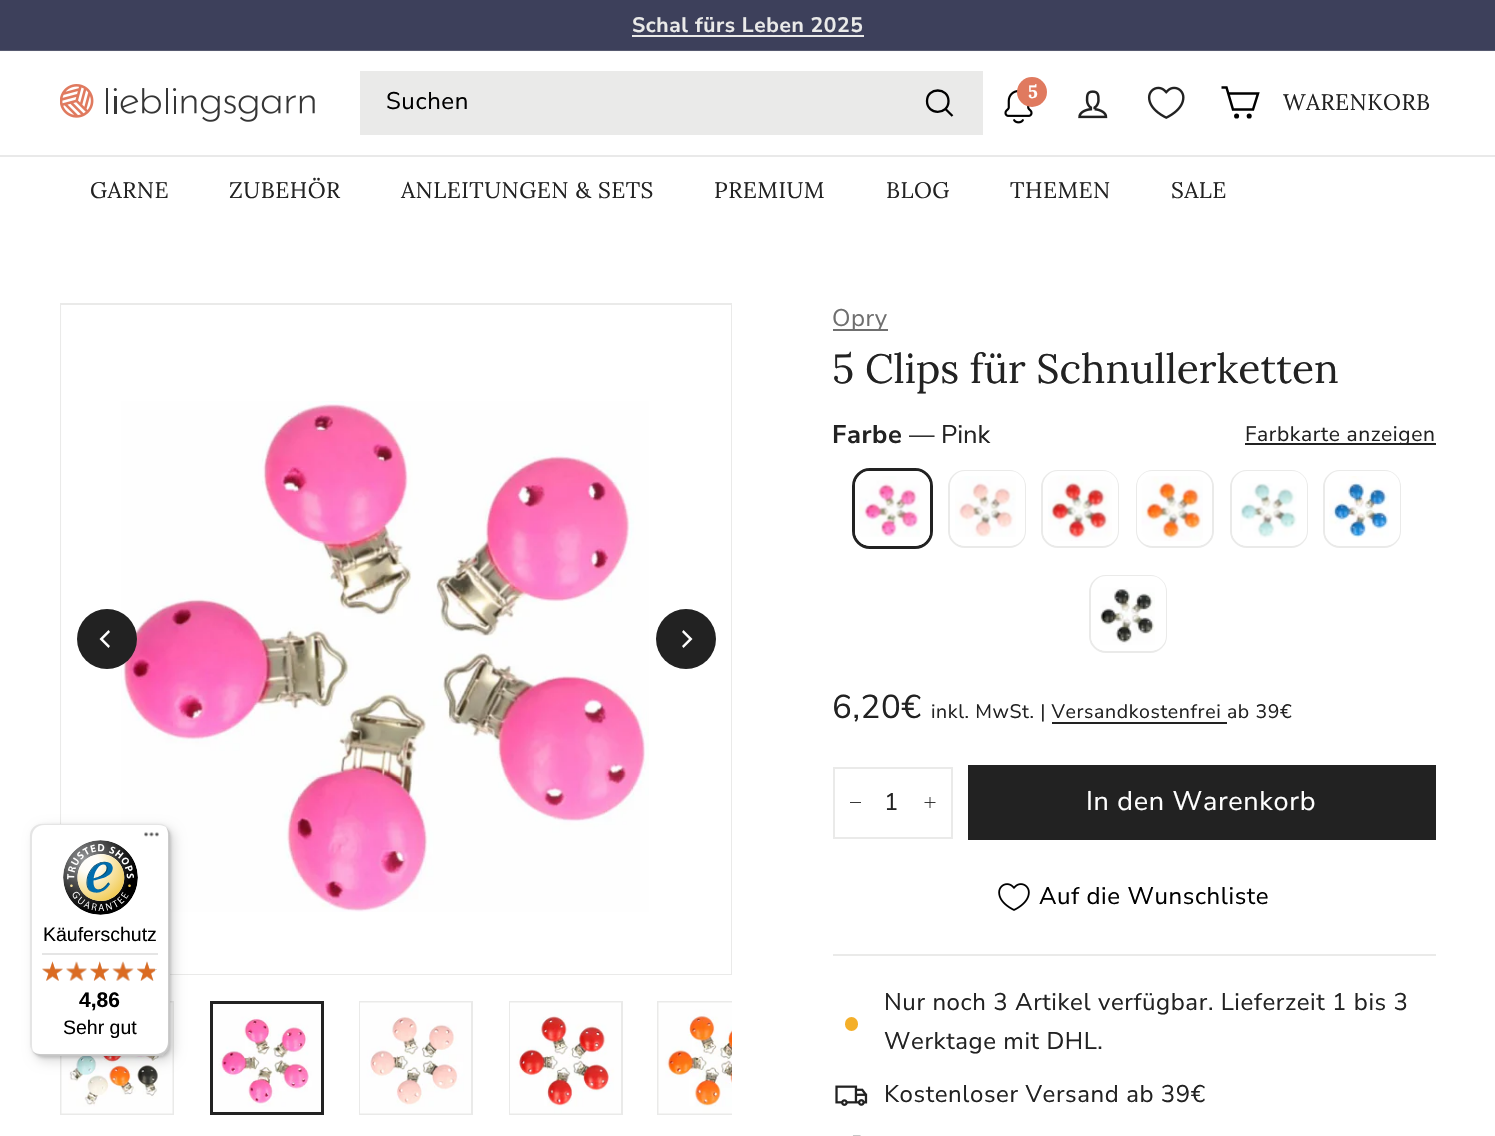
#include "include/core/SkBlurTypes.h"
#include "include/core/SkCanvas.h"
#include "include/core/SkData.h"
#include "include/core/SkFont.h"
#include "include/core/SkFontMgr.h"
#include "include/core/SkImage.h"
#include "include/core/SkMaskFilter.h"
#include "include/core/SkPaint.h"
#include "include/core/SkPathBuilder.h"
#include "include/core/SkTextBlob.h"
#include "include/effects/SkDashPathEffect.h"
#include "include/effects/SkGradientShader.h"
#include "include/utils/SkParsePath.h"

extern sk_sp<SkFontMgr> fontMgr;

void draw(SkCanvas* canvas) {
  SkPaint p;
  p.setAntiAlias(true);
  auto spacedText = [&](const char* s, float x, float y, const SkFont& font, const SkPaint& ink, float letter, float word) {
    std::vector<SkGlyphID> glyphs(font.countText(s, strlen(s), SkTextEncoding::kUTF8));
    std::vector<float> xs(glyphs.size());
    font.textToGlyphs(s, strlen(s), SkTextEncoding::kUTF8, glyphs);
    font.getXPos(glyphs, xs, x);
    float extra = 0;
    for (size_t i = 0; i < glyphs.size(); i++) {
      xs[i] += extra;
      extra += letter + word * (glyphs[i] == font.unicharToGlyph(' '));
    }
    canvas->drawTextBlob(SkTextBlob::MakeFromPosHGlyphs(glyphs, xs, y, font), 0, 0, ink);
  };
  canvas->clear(SK_ColorWHITE);
  p.setColor(SkColorSetRGB(252, 252, 252));
  canvas->drawRect(SkRect::MakeLTRB(0, 51, 1495, 52), p);
  p.setColor(SkColorSetRGB(61, 64, 91));
  canvas->drawRect(SkRect::MakeLTRB(0, 0, 1495, 50), p);
  p.setColor(SkColorSetRGB(87, 90, 112));
  canvas->drawRect(SkRect::MakeLTRB(0, 50, 1495, 51), p);
  p.setColor(SkColorSetRGB(234, 234, 233));
  canvas->drawRect(SkRect::MakeLTRB(632, 35, 864, 37), p);
  canvas->drawImageRect(SkImages::DeferredFromEncodedData(SkData::MakeFromFileName("images/1.png")), SkRect::MakeLTRB(60, 84, 315, 122), SkSamplingOptions());
  canvas->drawRect(SkRect::MakeLTRB(360, 71, 983, 135), p);
  p.setStyle(SkPaint::kStroke_Style);
  p.setStrokeWidth(2.3f);
  p.setColor(SK_ColorBLACK);
  canvas->drawPath(SkPathBuilder().moveTo(948.5f, 101).cubicTo(948.5f, 115.5f, 927, 115.5f, 927, 101).cubicTo(927, 87, 948.5f, 87, 948.5f, 101).moveTo(952.5f, 116).lineTo(945.5f, 109).detach(), p);
  canvas->drawImageRect(SkImages::DeferredFromEncodedData(SkData::MakeFromFileName("images/2.png")), SkRect::MakeLTRB(1004, 90, 1033, 124), SkSamplingOptions());
  p.setStyle(SkPaint::kFill_Style);
  p.setColor(SkColorSetRGB(224, 122, 95));
  canvas->drawCircle(1032, 92, 15, p);
  canvas->drawImageRect(SkImages::DeferredFromEncodedData(SkData::MakeFromFileName("images/3.png")), SkRect::MakeLTRB(1078, 90, 1108, 119), SkSamplingOptions());
  canvas->drawImageRect(SkImages::DeferredFromEncodedData(SkData::MakeFromFileName("images/4.png")), SkRect::MakeLTRB(1147, 86, 1185, 119), SkSamplingOptions());
  p.setStyle(SkPaint::kStroke_Style);
  p.setStrokeWidth(2.5f);
  p.setColor(SK_ColorBLACK);
  canvas->drawPath(SkPathBuilder().moveTo(1228.5f, 93.5f).lineTo(1258, 93.5f).lineTo(1253, 109.5f).lineTo(1233, 109.5f).lineTo(1226.5f, 87.5f).lineTo(1221.5f, 87.5f).detach(), p);
  canvas->drawCircle(1236.6f, 116, 1.3f, p);
  canvas->drawCircle(1249.2f, 116, 1.3f, p);
  p.setStyle(SkPaint::kFill_Style);
  p.setColor(SkColorSetRGB(233, 233, 233));
  canvas->drawRect(SkRect::MakeLTRB(0, 155, 1495, 157), p);
  p.setStyle(SkPaint::kStroke_Style);
  p.setStrokeWidth(2);
  p.setColor(SkColorSetRGB(234, 234, 233));
  canvas->drawRect(SkRect::MakeLTRB(61, 304, 731, 974), p);
  p.setStyle(SkPaint::kFill_Style);
  p.setColor(SkColorSetRGB(254, 254, 254));
  canvas->drawRect(SkRect::MakeLTRB(61, 305, 62, 824), p);
  p.setColor(SK_ColorWHITE);
  canvas->drawRect(SkRect::MakeLTRB(62, 305, 731, 974), p);
  canvas->drawImageRect(SkImages::DeferredFromEncodedData(SkData::MakeFromFileName("images/5.png")), SkRect::MakeLTRB(121, 401, 649, 912), SkSamplingOptions());
  p.setColor(SkColorSetRGB(34, 34, 34));
  canvas->drawCircle(107, 639, 30, p);
  p.setColor(SK_ColorWHITE);
  canvas->drawPath(SkPathBuilder().moveTo(99.5f, 639).lineTo(108.5f, 648).lineTo(110, 646).lineTo(103, 639).lineTo(110, 632).lineTo(108.5f, 630).close().detach(), p);
  p.setColor(SkColorSetRGB(34, 34, 34));
  canvas->drawCircle(686, 639, 30, p);
  p.setColor(SK_ColorWHITE);
  canvas->drawPath(SkPathBuilder().moveTo(692.5f, 639).lineTo(683.5f, 630).lineTo(682, 632).lineTo(689, 639).lineTo(682, 646).lineTo(683.5f, 648).close().detach(), p);
  p.setStyle(SkPaint::kStroke_Style);
  p.setColor(SkColorSetRGB(234, 234, 233));
  canvas->drawRect(SkRect::MakeLTRB(61, 1002, 173, 1114), p);
  canvas->drawImageRect(SkImages::DeferredFromEncodedData(SkData::MakeFromFileName("images/6.png")), SkRect::MakeLTRB(61, 1002, 173, 1114), SkSamplingOptions());
  canvas->drawImageRect(SkImages::DeferredFromEncodedData(SkData::MakeFromFileName("images/7.png")), SkRect::MakeLTRB(213, 1004, 321, 1112), SkSamplingOptions());
  p.setStrokeWidth(3);
  p.setColor(SkColorSetRGB(34, 34, 34));
  canvas->drawRect(SkRect::MakeLTRB(211.5f, 1002.5f, 322.5f, 1113.5f), p);
  p.setStrokeWidth(2);
  p.setColor(SkColorSetRGB(234, 234, 233));
  canvas->drawRect(SkRect::MakeLTRB(360, 1002, 472, 1114), p);
  canvas->drawImageRect(SkImages::DeferredFromEncodedData(SkData::MakeFromFileName("images/8.png")), SkRect::MakeLTRB(360, 1002, 471, 1114), SkSamplingOptions());
  canvas->drawRect(SkRect::MakeLTRB(510, 1002, 622, 1114), p);
  canvas->drawImageRect(SkImages::DeferredFromEncodedData(SkData::MakeFromFileName("images/9.png")), SkRect::MakeLTRB(510, 1002, 621, 1114), SkSamplingOptions());
  canvas->save();
  canvas->clipRect(SkRect::MakeLTRB(657, 1001, 732, 1115));
  canvas->drawRect(SkRect::MakeLTRB(658, 1002, 770, 1114), p);
  canvas->restore();
  canvas->drawImageRect(SkImages::DeferredFromEncodedData(SkData::MakeFromFileName("images/10.png")), SkRect::MakeLTRB(658, 1002, 732, 1114), SkSamplingOptions());
  p.setStyle(SkPaint::kFill_Style);
  p.setColor(SkColorSetRGB(111, 111, 111));
  canvas->drawRect(SkRect::MakeLTRB(833, 329, 888, 331), p);
  p.setColor(SkColorSetRGB(34, 34, 34));
  canvas->drawRect(SkRect::MakeLTRB(1245, 443, 1436, 445), p);
  p.setStyle(SkPaint::kStroke_Style);
  p.setStrokeWidth(3);
  canvas->drawRoundRect(SkRect::MakeLTRB(853.5f, 469.5f, 931.5f, 547.5f), 16.5f, 16.5f, p);
  p.setStrokeWidth(5);
  p.setColor(SK_ColorWHITE);
  canvas->drawRoundRect(SkRect::MakeLTRB(857.5f, 473.5f, 927.5f, 543.5f), 12.5f, 12.5f, p);
  canvas->drawImageRect(SkImages::DeferredFromEncodedData(SkData::MakeFromFileName("images/11.png")), SkRect::MakeLTRB(859, 476, 920, 537), SkSamplingOptions());
  p.setStrokeWidth(2);
  p.setColor(SkColorSetRGB(234, 234, 233));
  canvas->drawRoundRect(SkRect::MakeLTRB(949, 471, 1025, 547), 16, 16, p);
  p.setStrokeWidth(5);
  p.setColor(SK_ColorWHITE);
  canvas->drawRoundRect(SkRect::MakeLTRB(952.5f, 473.5f, 1022.5f, 543.5f), 12.5f, 12.5f, p);
  canvas->drawImageRect(SkImages::DeferredFromEncodedData(SkData::MakeFromFileName("images/12.png")), SkRect::MakeLTRB(955, 476, 1016, 537), SkSamplingOptions());
  p.setStrokeWidth(2);
  p.setColor(SkColorSetRGB(234, 234, 233));
  canvas->drawRoundRect(SkRect::MakeLTRB(1042, 471, 1118, 547), 16, 16, p);
  p.setStrokeWidth(5);
  p.setColor(SK_ColorWHITE);
  canvas->drawRoundRect(SkRect::MakeLTRB(1045.5f, 473.5f, 1115.5f, 543.5f), 12.5f, 12.5f, p);
  canvas->drawImageRect(SkImages::DeferredFromEncodedData(SkData::MakeFromFileName("images/13.png")), SkRect::MakeLTRB(1048, 475, 1112, 541), SkSamplingOptions());
  p.setStrokeWidth(2);
  p.setColor(SkColorSetRGB(234, 234, 233));
  canvas->drawRoundRect(SkRect::MakeLTRB(1137, 471, 1213, 547), 16, 16, p);
  p.setStrokeWidth(5);
  p.setColor(SK_ColorWHITE);
  canvas->drawRoundRect(SkRect::MakeLTRB(1139.5f, 473.5f, 1209.5f, 543.5f), 12.5f, 12.5f, p);
  canvas->drawImageRect(SkImages::DeferredFromEncodedData(SkData::MakeFromFileName("images/14.png")), SkRect::MakeLTRB(1141, 476, 1203, 541), SkSamplingOptions());
  p.setStrokeWidth(2);
  p.setColor(SkColorSetRGB(234, 234, 233));
  canvas->drawRoundRect(SkRect::MakeLTRB(1231, 471, 1307, 547), 16, 16, p);
  p.setStrokeWidth(5);
  p.setColor(SK_ColorWHITE);
  canvas->drawRoundRect(SkRect::MakeLTRB(1234.5f, 473.5f, 1304.5f, 543.5f), 12.5f, 12.5f, p);
  canvas->drawImageRect(SkImages::DeferredFromEncodedData(SkData::MakeFromFileName("images/15.png")), SkRect::MakeLTRB(1240, 483, 1297, 538), SkSamplingOptions());
  p.setStrokeWidth(2);
  p.setColor(SkColorSetRGB(234, 234, 233));
  canvas->drawRoundRect(SkRect::MakeLTRB(1324, 471, 1400, 547), 16, 16, p);
  p.setStrokeWidth(5);
  p.setColor(SK_ColorWHITE);
  canvas->drawRoundRect(SkRect::MakeLTRB(1327.5f, 473.5f, 1397.5f, 543.5f), 12.5f, 12.5f, p);
  canvas->drawImageRect(SkImages::DeferredFromEncodedData(SkData::MakeFromFileName("images/16.png")), SkRect::MakeLTRB(1329, 476, 1389, 538), SkSamplingOptions());
  p.setStrokeWidth(2);
  p.setColor(SkColorSetRGB(234, 234, 233));
  canvas->drawRoundRect(SkRect::MakeLTRB(1090, 576, 1166, 652), 16, 16, p);
  p.setStrokeWidth(5);
  p.setColor(SK_ColorWHITE);
  canvas->drawRoundRect(SkRect::MakeLTRB(1093.5f, 578.5f, 1163.5f, 648.5f), 12.5f, 12.5f, p);
  canvas->drawImageRect(SkImages::DeferredFromEncodedData(SkData::MakeFromFileName("images/17.png")), SkRect::MakeLTRB(1100, 587, 1155, 645), SkSamplingOptions());
  p.setStyle(SkPaint::kFill_Style);
  p.setColor(SkColorSetRGB(34, 34, 34));
  canvas->drawRect(SkRect::MakeLTRB(1052, 722, 1227, 724), p);
  p.setStyle(SkPaint::kStroke_Style);
  p.setStrokeWidth(2);
  p.setColor(SkColorSetRGB(234, 234, 233));
  canvas->drawRect(SkRect::MakeLTRB(834, 768, 952, 838), p);
  p.setStyle(SkPaint::kFill_Style);
  p.setColor(SkColorSetRGB(56, 56, 56));
  canvas->drawRect(SkRect::MakeLTRB(850, 802, 861, 803), p);
  p.setStyle(SkPaint::kStroke_Style);
  p.setStrokeWidth(0.9f);
  p.setColor(SkColorSetRGB(34, 34, 34));
  canvas->drawPath(SkPathBuilder().moveTo(930, 797).lineTo(930, 808).moveTo(935.5f, 802.5f).lineTo(924.5f, 802.5f).detach(), p);
  p.setStyle(SkPaint::kFill_Style);
  canvas->drawRect(SkRect::MakeLTRB(968, 765, 1436, 840), p);
  canvas->drawImageRect(SkImages::DeferredFromEncodedData(SkData::MakeFromFileName("images/18.png")), SkRect::MakeLTRB(998, 883, 1030, 911), SkSamplingOptions());
  p.setColor(SkColorSetRGB(234, 234, 233));
  canvas->drawRect(SkRect::MakeLTRB(833, 954, 1436, 956), p);
  p.setColor(SkColorSetRGB(244, 175, 41));
  canvas->drawRoundRect(SkRect::MakeLTRB(845, 1017, 858, 1031), 6.5f, 6.5f, p);
  canvas->drawImageRect(SkImages::DeferredFromEncodedData(SkData::MakeFromFileName("images/19.png")), SkRect::MakeLTRB(835, 1085, 868, 1106), SkSamplingOptions());
  p.setStyle(SkPaint::kStroke_Style);
  p.setStrokeWidth(2.3f);
  p.setColor(SkColorSetRGB(34, 34, 34));
  canvas->drawPath(SkPathBuilder().moveTo(860, 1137).lineTo(853.5f, 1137).lineTo(838.5f, 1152).lineTo(849, 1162.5f).lineTo(864, 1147.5f).lineTo(864, 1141).close().detach(), p);
  p.setStyle(SkPaint::kFill_Style);
  p.setColor(SkColorSetARGB(38, 0, 0, 0));
  p.setMaskFilter(SkMaskFilter::MakeBlur(kNormal_SkBlurStyle, 6));
  canvas->drawRoundRect(SkRect::MakeLTRB(35, 828, 174, 1061), 12, 12, p);
  p.setMaskFilter(nullptr);
  p.setMaskFilter(SkMaskFilter::MakeBlur(kNormal_SkBlurStyle, 1.5f));
  canvas->drawRoundRect(SkRect::MakeLTRB(32, 825, 171, 1058), 12, 12, p);
  p.setMaskFilter(nullptr);
  p.setColor(SK_ColorWHITE);
  canvas->drawRoundRect(SkRect::MakeLTRB(30, 824, 170, 1056), 12, 12, p);
  p.setColor(SkColorSetARGB(26, 0, 0, 0));
  canvas->drawPath(SkPathBuilder().moveTo(44, 825).lineTo(159, 825).cubicTo(162, 825, 164, 826, 166, 827).cubicTo(164, 825, 161, 824, 158, 824).lineTo(42, 824).cubicTo(35, 824, 30, 829, 30, 836).lineTo(30, 1044).cubicTo(30, 1048, 32, 1051, 35, 1054).cubicTo(33, 1051, 32, 1049, 32, 1046).lineTo(32, 837).cubicTo(32, 830, 37, 825, 44, 825).close().detach(), p);
  p.setColor(SkColorSetARGB(51, 0, 0, 0));
  canvas->drawPath(SkPathBuilder().moveTo(32, 1051).cubicTo(35, 1054, 38, 1056, 42, 1056).lineTo(158, 1056).cubicTo(165, 1056, 170, 1051, 170, 1044).lineTo(170, 836).cubicTo(170, 832, 168, 829, 166, 827).cubicTo(167, 829, 168, 831, 168, 834).lineTo(168, 1042).cubicTo(168, 1049, 163, 1054, 156, 1054).lineTo(40, 1054).cubicTo(37, 1054, 35, 1053, 32, 1051).close().detach(), p);
  p.setColor(SkColorSetARGB(51, 50, 50, 50));
  canvas->drawPath(SkPathBuilder().moveTo(34, 1053).cubicTo(36, 1055, 39, 1056, 42, 1056).lineTo(158, 1056).cubicTo(165, 1056, 170, 1051, 170, 1044).lineTo(170, 836).cubicTo(170, 832, 168, 829, 166, 827).cubicTo(168, 829, 169, 832, 169, 835).lineTo(169, 1043).cubicTo(169, 1050, 163, 1055, 157, 1055).lineTo(41, 1055).cubicTo(38, 1055, 36, 1054, 34, 1053).close().detach(), p);
  p.setColor(SkColorSetARGB(77, 255, 255, 255));
  canvas->drawPath(SkPathBuilder().moveTo(33, 1052).cubicTo(35, 1054, 38, 1056, 42, 1056).lineTo(158, 1056).cubicTo(165, 1056, 170, 1051, 170, 1044).lineTo(170, 836).cubicTo(170, 832, 168, 829, 166, 827).cubicTo(168, 829, 169, 832, 169, 835).lineTo(169, 1043).cubicTo(169, 1050, 163, 1055, 157, 1055).lineTo(41, 1055).cubicTo(38, 1055, 35, 1054, 33, 1052).close().detach(), p);
  canvas->drawImageRect(SkImages::DeferredFromEncodedData(SkData::MakeFromFileName("images/20.png")), SkRect::MakeLTRB(144, 832, 159, 837), SkSamplingOptions());
  canvas->drawImageRect(SkImages::DeferredFromEncodedData(SkData::MakeFromFileName("images/21.png")), SkRect::MakeLTRB(63, 840, 138, 915), SkSamplingOptions());
  p.setColor(SkColorSetRGB(229, 229, 229));
  canvas->drawRect(SkRect::MakeLTRB(42, 953, 158, 955), p);
  canvas->drawImageRect(SkImages::DeferredFromEncodedData(SkData::MakeFromFileName("images/27.png")), SkRect::MakeLTRB(42, 962, 63, 981), SkSamplingOptions());
  canvas->drawImageRect(SkImages::DeferredFromEncodedData(SkData::MakeFromFileName("images/22.png")), SkRect::MakeLTRB(42, 961, 63, 981), SkSamplingOptions());
  canvas->drawImageRect(SkImages::DeferredFromEncodedData(SkData::MakeFromFileName("images/28.png")), SkRect::MakeLTRB(66, 962, 87, 981), SkSamplingOptions());
  canvas->drawImageRect(SkImages::DeferredFromEncodedData(SkData::MakeFromFileName("images/23.png")), SkRect::MakeLTRB(66, 961, 87, 981), SkSamplingOptions());
  canvas->drawImageRect(SkImages::DeferredFromEncodedData(SkData::MakeFromFileName("images/29.png")), SkRect::MakeLTRB(90, 962, 109, 981), SkSamplingOptions());
  canvas->drawImageRect(SkImages::DeferredFromEncodedData(SkData::MakeFromFileName("images/24.png")), SkRect::MakeLTRB(90, 961, 109, 981), SkSamplingOptions());
  canvas->drawImageRect(SkImages::DeferredFromEncodedData(SkData::MakeFromFileName("images/30.png")), SkRect::MakeLTRB(113, 962, 133, 981), SkSamplingOptions());
  canvas->drawImageRect(SkImages::DeferredFromEncodedData(SkData::MakeFromFileName("images/25.png")), SkRect::MakeLTRB(112, 961, 134, 981), SkSamplingOptions());
  canvas->drawImageRect(SkImages::DeferredFromEncodedData(SkData::MakeFromFileName("images/31.png")), SkRect::MakeLTRB(137, 962, 157, 981), SkSamplingOptions());
  canvas->drawImageRect(SkImages::DeferredFromEncodedData(SkData::MakeFromFileName("images/26.png")), SkRect::MakeLTRB(137, 961, 155, 981), SkSamplingOptions());
  SkFont font1(fontMgr->matchFamilyStyle("Nunito Sans", SkFontStyle::Bold()), 21);
  font1.setSubpixel(true);
  p.setColor(SkColorSetRGB(234, 234, 233));
  spacedText("Schal fürs Leben 2025", 632, 32, font1, p, 0.6f, 0);
  SkFont font2(fontMgr->matchFamilyStyle("Nunito Sans", SkFontStyle::Normal()), 24);
  font2.setSubpixel(true);
  p.setColor(SK_ColorBLACK);
  spacedText("Suchen", 386, 109, font2, p, 0.6f, 0);
  SkFont font3(fontMgr->matchFamilyStyle("Lora", SkFontStyle::Bold()), 18);
  font3.setSubpixel(true);
  p.setColor(SK_ColorWHITE);
  canvas->drawString("5", 1028, 98, font3, p);
  SkFont font4(fontMgr->matchFamilyStyle("Lora", SkFontStyle::Normal()), 22.5f);
  font4.setSubpixel(true);
  p.setColor(SkColorSetRGB(34, 34, 34));
  spacedText("WARENKORB", 1283, 110, font4, p, 0.5f, 0);
  spacedText("GARNE", 90, 198, font4, p, 0.5f, 0);
  spacedText("ZUBEHÖR", 229, 198, font4, p, 0.5f, 0);
  spacedText("ANLEITUNGEN & SETS", 401, 198, font4, p, 0.5f, 0);
  spacedText("PREMIUM", 714, 198, font4, p, 0.5f, 0);
  spacedText("BLOG", 886, 198, font4, p, 0.5f, 0);
  spacedText("THEMEN", 1010, 198, font4, p, 0.5f, 0);
  spacedText("SALE", 1171, 198, font4, p, 0.5f, 0);
  p.setColor(SkColorSetRGB(111, 111, 111));
  spacedText("Opry", 832, 326, font2, p, 0.6f, 0);
  SkFont font5(fontMgr->matchFamilyStyle("Lora", SkFontStyle::Normal()), 40.75f);
  font5.setSubpixel(true);
  p.setColor(SkColorSetRGB(34, 34, 34));
  canvas->drawString("5 Clips für Schnullerketten", 832, 383, font5, p);
  SkFont font6(fontMgr->matchFamilyStyle("Nunito Sans", SkFontStyle::Bold()), 25.5f);
  font6.setSubpixel(true);
  spacedText("Farbe", 832, 443, font6, p, 0.6f, 0);
  SkFont font7(fontMgr->matchFamilyStyle("Nunito Sans", SkFontStyle::Normal()), 25.5f);
  font7.setSubpixel(true);
  canvas->drawString("— Pink", 909, 443, font7, p);
  SkFont font8(fontMgr->matchFamilyStyle("Nunito Sans", SkFontStyle::Normal()), 21);
  font8.setSubpixel(true);
  spacedText("Farbkarte anzeigen", 1245, 441, font8, p, 0.6f, 0);
  SkFont font9(fontMgr->matchFamilyStyle("Nunito Sans", SkFontStyle::Normal()), 33);
  font9.setSubpixel(true);
  spacedText("6,20€", 832, 718, font9, p, 0.6f, 0);
  SkFont font10(fontMgr->matchFamilyStyle("Nunito Sans", SkFontStyle::Normal()), 19.5f);
  font10.setSubpixel(true);
  spacedText("inkl. MwSt. | Versandkostenfrei ab 39€", 931, 718, font10, p, 0.6f, 0);
  spacedText("1", 884, 810, font2, p, 0.6f, 0);
  SkFont font11(fontMgr->matchFamilyStyle("Nunito Sans", SkFontStyle::Normal()), 27);
  font11.setSubpixel(true);
  p.setColor(SK_ColorWHITE);
  spacedText("In den Warenkorb", 1086, 810, font11, p, 0.7f, 0);
  p.setColor(SK_ColorBLACK);
  spacedText("Auf die Wunschliste", 1039, 904, font2, p, 0.6f, 0);
  p.setColor(SkColorSetRGB(34, 34, 34));
  spacedText("Nur noch 3 Artikel verfügbar. Lieferzeit 1 bis 3", 884, 1010, font2, p, 0.6f, 0);
  spacedText("Werktage mit DHL.", 884, 1049, font2, p, 0.6f, 0);
  spacedText("Kostenloser Versand ab 39€", 884, 1102, font2, p, 0.6f, 0);
  SkFont font12(fontMgr->matchFamilyStyle("Liberation Sans", SkFontStyle::Normal()), 19.5f);
  font12.setSubpixel(true);
  p.setColor(SK_ColorBLACK);
  canvas->drawString("Käuferschutz", 43, 941, font12, p);
  SkFont font13(fontMgr->matchFamilyStyle("Liberation Sans", SkFontStyle::Bold()), 21);
  font13.setSubpixel(true);
  canvas->drawString("4,86", 79, 1007, font13, p);
  canvas->drawString("Sehr gut", 63, 1034, font12, p);
}
